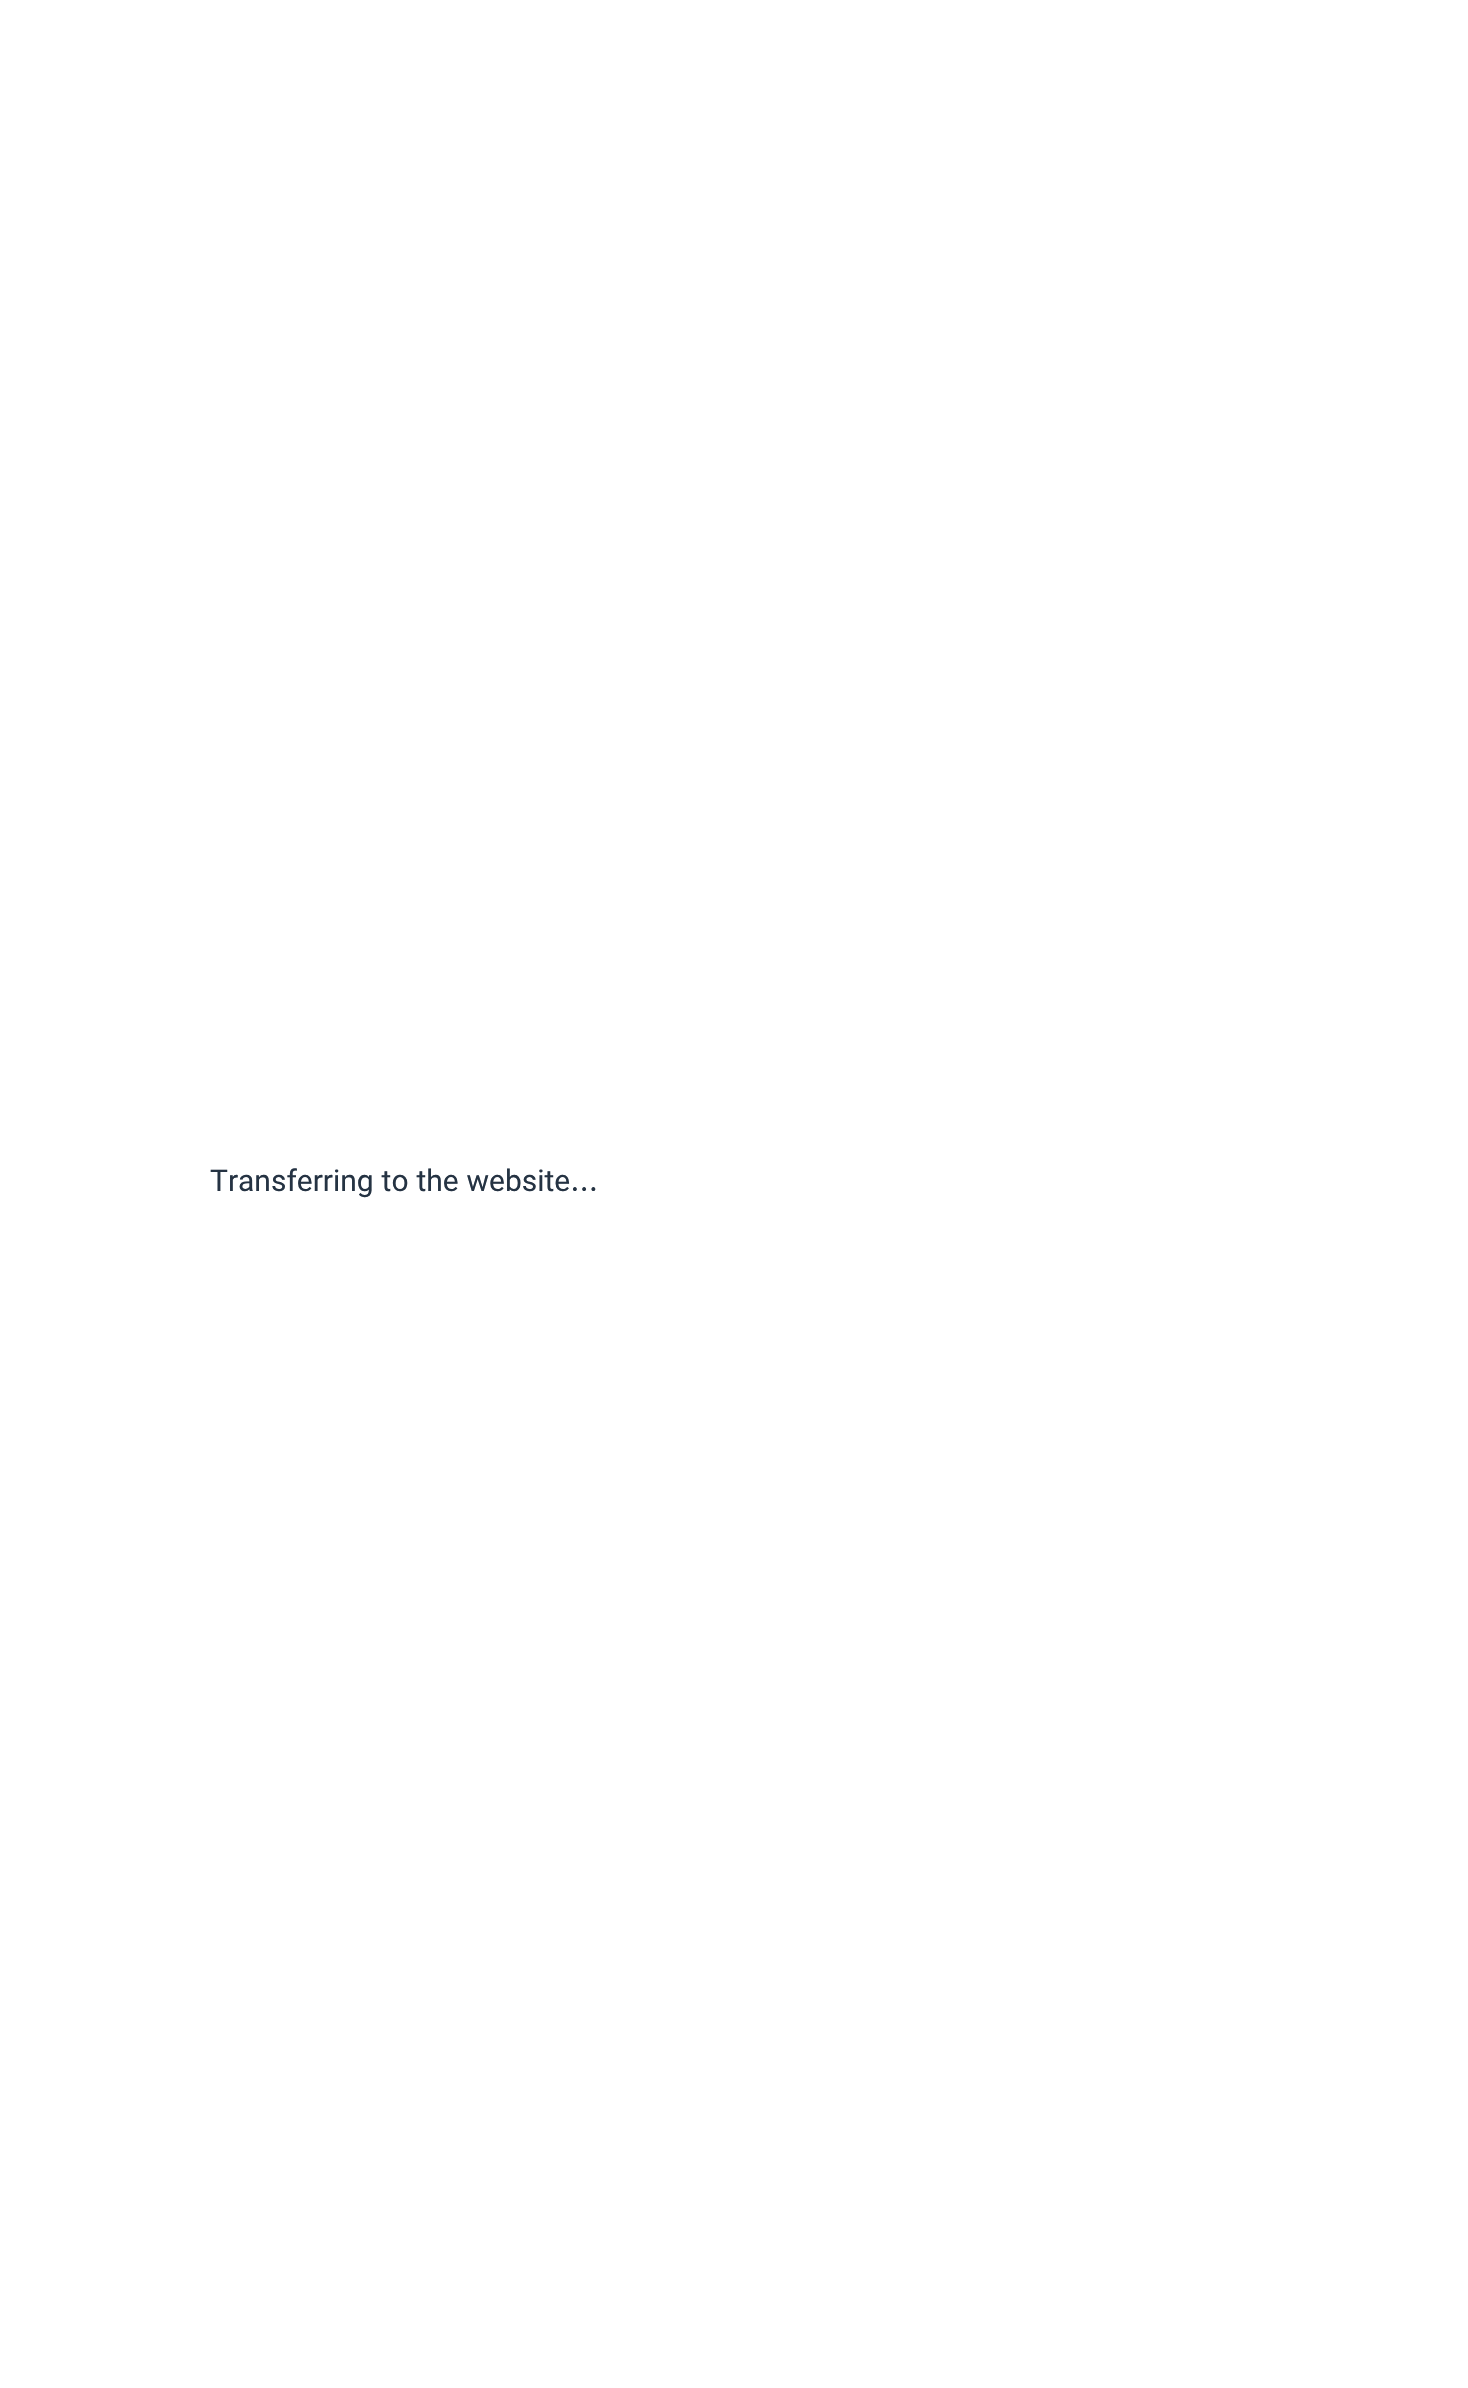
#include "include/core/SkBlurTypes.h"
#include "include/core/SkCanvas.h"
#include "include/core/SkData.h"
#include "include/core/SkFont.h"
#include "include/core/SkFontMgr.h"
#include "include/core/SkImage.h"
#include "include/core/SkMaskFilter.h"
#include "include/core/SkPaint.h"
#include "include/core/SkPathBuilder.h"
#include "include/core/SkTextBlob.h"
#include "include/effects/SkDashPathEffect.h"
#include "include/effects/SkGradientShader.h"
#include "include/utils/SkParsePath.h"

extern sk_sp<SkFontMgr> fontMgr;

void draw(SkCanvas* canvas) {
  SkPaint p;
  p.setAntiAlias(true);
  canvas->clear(SK_ColorWHITE);
  SkFont font1(fontMgr->matchFamilyStyle("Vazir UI", SkFontStyle::Normal()), 30);
  font1.setSubpixel(true);
  p.setColor(SkColorSetRGB(37, 51, 67));
  canvas->drawString("Transferring to the website...", 210, 1191, font1, p);
}
